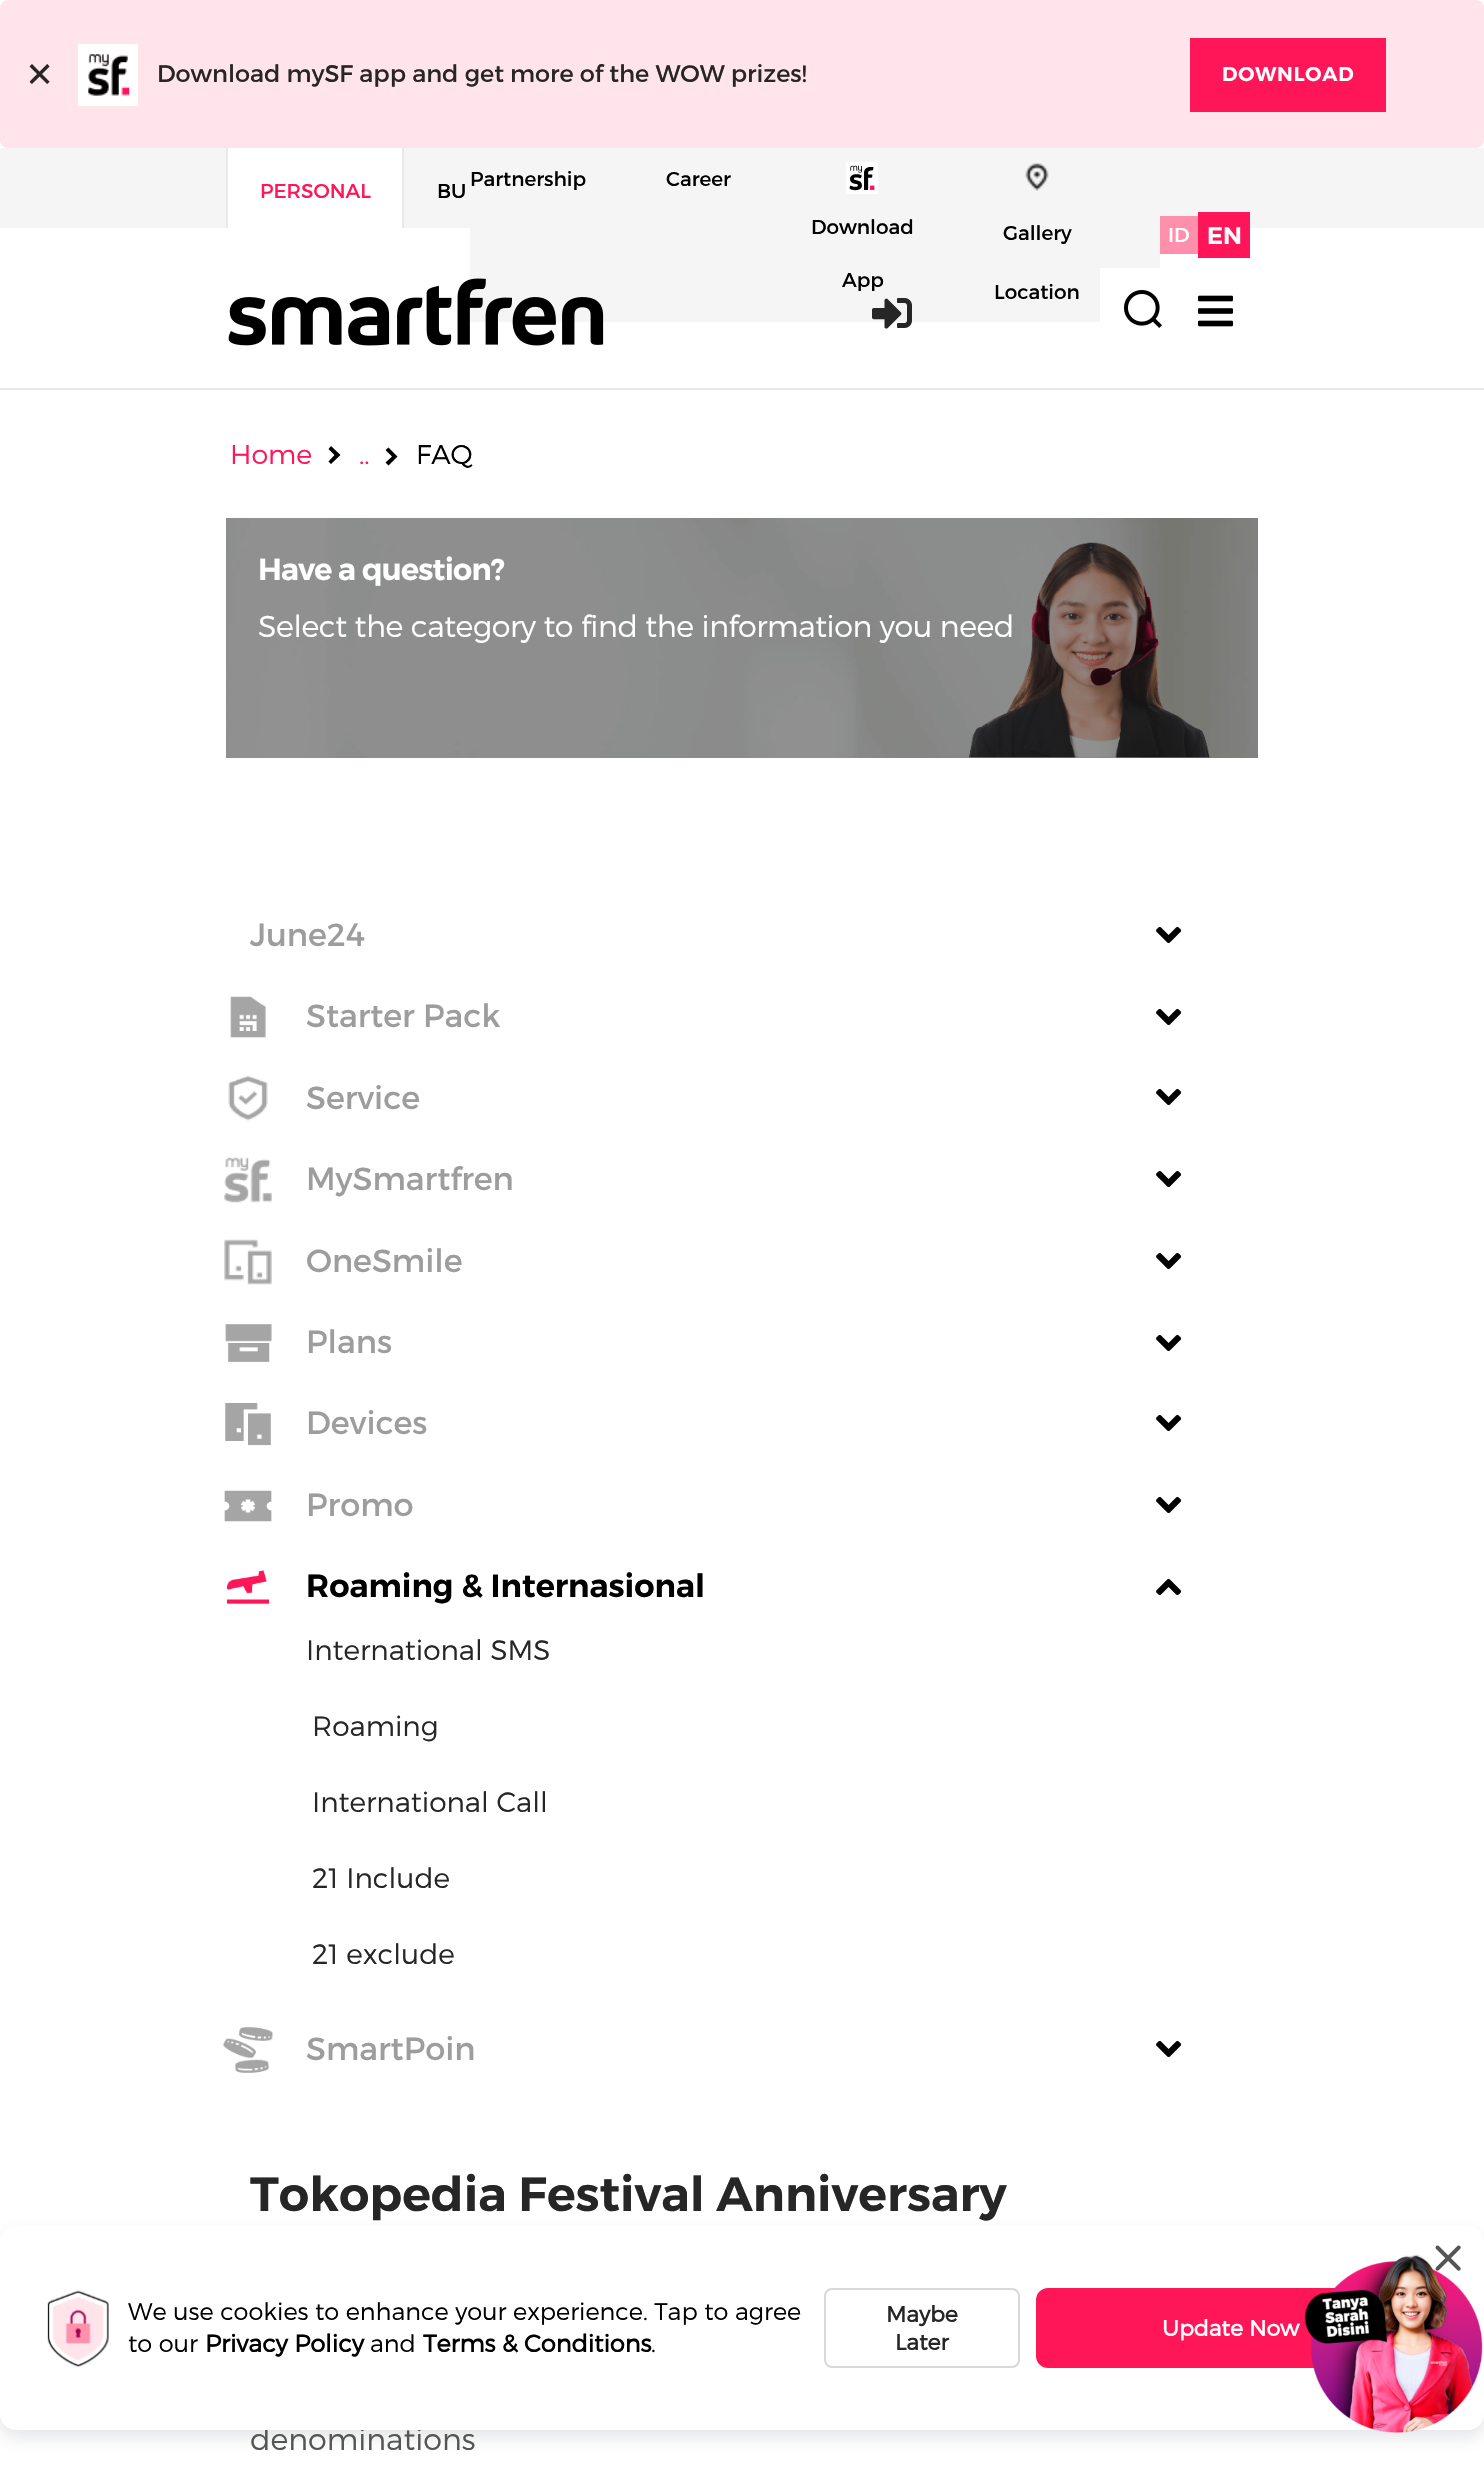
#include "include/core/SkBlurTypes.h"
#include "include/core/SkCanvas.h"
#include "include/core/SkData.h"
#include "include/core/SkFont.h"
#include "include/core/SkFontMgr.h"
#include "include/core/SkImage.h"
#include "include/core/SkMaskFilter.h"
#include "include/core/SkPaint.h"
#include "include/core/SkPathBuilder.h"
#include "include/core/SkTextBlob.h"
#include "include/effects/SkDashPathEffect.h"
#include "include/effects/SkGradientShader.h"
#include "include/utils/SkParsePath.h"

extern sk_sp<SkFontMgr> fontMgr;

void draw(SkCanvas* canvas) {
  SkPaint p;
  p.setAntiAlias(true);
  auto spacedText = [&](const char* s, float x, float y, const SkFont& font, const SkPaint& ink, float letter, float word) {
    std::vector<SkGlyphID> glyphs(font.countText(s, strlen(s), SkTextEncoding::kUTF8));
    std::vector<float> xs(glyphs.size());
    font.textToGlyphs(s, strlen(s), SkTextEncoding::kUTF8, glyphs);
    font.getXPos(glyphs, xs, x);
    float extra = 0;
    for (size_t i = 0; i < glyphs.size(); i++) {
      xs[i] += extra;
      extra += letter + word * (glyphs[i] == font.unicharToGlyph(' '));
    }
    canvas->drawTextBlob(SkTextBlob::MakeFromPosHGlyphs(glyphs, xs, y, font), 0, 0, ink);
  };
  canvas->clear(SK_ColorWHITE);
  p.setColor(SkColorSetRGB(255, 229, 235));
  canvas->drawRoundRect(SkRect::MakeLTRB(1, 1, 1483, 147), 7, 7, p);
  p.setStyle(SkPaint::kStroke_Style);
  p.setStrokeWidth(2);
  canvas->drawRoundRect(SkRect::MakeLTRB(1, 1, 1483, 147), 7, 7, p);
  canvas->drawImageRect(SkImages::DeferredFromEncodedData(SkData::MakeFromFileName("images/1.png")), SkRect::MakeLTRB(78, 44, 138, 106), SkSamplingOptions());
  p.setStyle(SkPaint::kFill_Style);
  p.setColor(SkColorSetRGB(255, 22, 89));
  canvas->drawRect(SkRect::MakeLTRB(1190, 38, 1386, 112), p);
  p.setColor(SkColorSetRGB(245, 245, 245));
  canvas->drawRect(SkRect::MakeLTRB(0, 148, 1484, 228), p);
  p.setColor(SK_ColorWHITE);
  canvas->drawRect(SkRect::MakeLTRB(228, 148, 402, 228), p);
  p.setColor(SkColorSetRGB(233, 233, 233));
  canvas->drawRect(SkRect::MakeLTRB(402, 148, 404, 228), p);
  canvas->drawRect(SkRect::MakeLTRB(226, 148, 228, 228), p);
  p.setColor(SkColorSetRGB(245, 245, 245));
  canvas->drawRect(SkRect::MakeLTRB(470, 228, 1160, 322), p);
  canvas->drawImageRect(SkImages::DeferredFromEncodedData(SkData::MakeFromFileName("images/2.png")), SkRect::MakeLTRB(846, 162, 878, 194), SkSamplingOptions());
  canvas->drawImageRect(SkImages::DeferredFromEncodedData(SkData::MakeFromFileName("images/3.png")), SkRect::MakeLTRB(1025, 163, 1049, 191), SkSamplingOptions());
  p.setColor(SkColorSetRGB(255, 144, 172));
  canvas->drawRect(SkRect::MakeLTRB(1160, 216, 1198, 254), p);
  p.setColor(SkColorSetRGB(255, 22, 89));
  canvas->drawRect(SkRect::MakeLTRB(1198, 212, 1250, 258), p);
  p.setColor(SkColorSetRGB(233, 233, 233));
  canvas->drawRect(SkRect::MakeLTRB(0, 388, 1484, 390), p);
  canvas->drawImageRect(SkImages::DeferredFromEncodedData(SkData::MakeFromFileName("images/4.png")), SkRect::MakeLTRB(228, 278, 604, 346), SkSamplingOptions());
  canvas->drawImageRect(SkImages::DeferredFromEncodedData(SkData::MakeFromFileName("images/5.png")), SkRect::MakeLTRB(872, 298, 912, 329), SkSamplingOptions());
  p.setColor(SK_ColorWHITE);
  canvas->drawRect(SkRect::MakeLTRB(1100, 268, 1160, 322), p);
  canvas->drawImageRect(SkImages::DeferredFromEncodedData(SkData::MakeFromFileName("images/6.png")), SkRect::MakeLTRB(1124, 290, 1162, 328), SkSamplingOptions());
  canvas->drawImageRect(SkImages::DeferredFromEncodedData(SkData::MakeFromFileName("images/7.png")), SkRect::MakeLTRB(1198, 295, 1233, 327), SkSamplingOptions());
  p.setColor(SK_ColorBLACK);
  canvas->drawPath(SkPathBuilder(SkPathFillType::kEvenOdd).moveTo(331, 446).lineTo(328.5f, 449).lineTo(334.5f, 455).lineTo(328.5f, 461.5f).lineTo(331, 464).lineTo(340.5f, 455).close().detach(), p);
  canvas->drawPath(SkPathBuilder(SkPathFillType::kEvenOdd).moveTo(388.5f, 447.5f).lineTo(385.5f, 450).lineTo(392, 456.5f).lineTo(385.5f, 462.5f).lineTo(388.5f, 465.5f).lineTo(397.5f, 456.5f).close().detach(), p);
  p.setColor(SkColorSetRGB(13, 13, 13));
  canvas->drawRect(SkRect::MakeLTRB(226, 518, 1258, 758), p);
  canvas->drawImageRect(SkImages::DeferredFromEncodedData(SkData::MakeFromFileName("images/8.png")), SkRect::MakeLTRB(226, 518, 1258, 758), SkSamplingOptions());
  canvas->drawImageRect(SkImages::DeferredFromEncodedData(SkData::MakeFromFileName("images/9.png")), SkRect::MakeLTRB(1156, 927, 1182, 943), SkSamplingOptions());
  canvas->drawImageRect(SkImages::DeferredFromEncodedData(SkData::MakeFromFileName("images/10.png")), SkRect::MakeLTRB(230, 996, 266, 1038), SkSamplingOptions());
  canvas->drawImageRect(SkImages::DeferredFromEncodedData(SkData::MakeFromFileName("images/9.png")), SkRect::MakeLTRB(1156, 1009, 1182, 1025), SkSamplingOptions());
  canvas->drawImageRect(SkImages::DeferredFromEncodedData(SkData::MakeFromFileName("images/11.png")), SkRect::MakeLTRB(228, 1075, 268, 1121), SkSamplingOptions());
  canvas->drawImageRect(SkImages::DeferredFromEncodedData(SkData::MakeFromFileName("images/9.png")), SkRect::MakeLTRB(1156, 1089, 1182, 1105), SkSamplingOptions());
  canvas->drawImageRect(SkImages::DeferredFromEncodedData(SkData::MakeFromFileName("images/12.png")), SkRect::MakeLTRB(224, 1157, 272, 1203), SkSamplingOptions());
  canvas->drawImageRect(SkImages::DeferredFromEncodedData(SkData::MakeFromFileName("images/9.png")), SkRect::MakeLTRB(1156, 1171, 1182, 1187), SkSamplingOptions());
  canvas->drawImageRect(SkImages::DeferredFromEncodedData(SkData::MakeFromFileName("images/13.png")), SkRect::MakeLTRB(224, 1239, 272, 1285), SkSamplingOptions());
  canvas->drawImageRect(SkImages::DeferredFromEncodedData(SkData::MakeFromFileName("images/9.png")), SkRect::MakeLTRB(1156, 1253, 1182, 1269), SkSamplingOptions());
  canvas->drawImageRect(SkImages::DeferredFromEncodedData(SkData::MakeFromFileName("images/14.png")), SkRect::MakeLTRB(225, 1324, 272, 1362), SkSamplingOptions());
  canvas->drawImageRect(SkImages::DeferredFromEncodedData(SkData::MakeFromFileName("images/9.png")), SkRect::MakeLTRB(1156, 1335, 1182, 1351), SkSamplingOptions());
  canvas->drawImageRect(SkImages::DeferredFromEncodedData(SkData::MakeFromFileName("images/15.png")), SkRect::MakeLTRB(225, 1403, 271, 1446), SkSamplingOptions());
  canvas->drawImageRect(SkImages::DeferredFromEncodedData(SkData::MakeFromFileName("images/9.png")), SkRect::MakeLTRB(1156, 1415, 1182, 1431), SkSamplingOptions());
  canvas->drawImageRect(SkImages::DeferredFromEncodedData(SkData::MakeFromFileName("images/16.png")), SkRect::MakeLTRB(224, 1490, 272, 1522), SkSamplingOptions());
  canvas->drawImageRect(SkImages::DeferredFromEncodedData(SkData::MakeFromFileName("images/9.png")), SkRect::MakeLTRB(1156, 1497, 1182, 1513), SkSamplingOptions());
  canvas->drawImageRect(SkImages::DeferredFromEncodedData(SkData::MakeFromFileName("images/17.png")), SkRect::MakeLTRB(227, 1570, 269, 1604), SkSamplingOptions());
  canvas->drawImageRect(SkImages::DeferredFromEncodedData(SkData::MakeFromFileName("images/18.png")), SkRect::MakeLTRB(1156, 1579, 1182, 1595), SkSamplingOptions());
  canvas->drawImageRect(SkImages::DeferredFromEncodedData(SkData::MakeFromFileName("images/19.png")), SkRect::MakeLTRB(223, 2026, 273, 2073), SkSamplingOptions());
  canvas->drawImageRect(SkImages::DeferredFromEncodedData(SkData::MakeFromFileName("images/9.png")), SkRect::MakeLTRB(1156, 2041, 1182, 2057), SkSamplingOptions());
  p.setColor(SkColorSetARGB(41, 96, 97, 112));
  p.setMaskFilter(SkMaskFilter::MakeBlur(kNormal_SkBlurStyle, 8));
  canvas->drawRoundRect(SkRect::MakeLTRB(0, 2234, 1484, 2438), 16, 16, p);
  p.setMaskFilter(nullptr);
  SkFont font1(fontMgr->matchFamilyStyle("Liberation Serif", SkFontStyle::Bold()), 48);
  font1.setSubpixel(true);
  p.setColor(SkColorSetRGB(38, 38, 38));
  canvas->drawString("×", 26, 90, font1, p);
  SkFont font2(fontMgr->matchFamilyStyle("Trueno", SkFontStyle::Normal()), 24);
  font2.setSubpixel(true);
  canvas->drawString("Download mySF app and get more of the WOW prizes!", 157, 82, font2, p);
  SkFont font3(fontMgr->matchFamilyStyle("Trueno", SkFontStyle(600, SkFontStyle::kNormal_Width, SkFontStyle::kUpright_Slant)), 20);
  font3.setSubpixel(true);
  p.setColor(SK_ColorWHITE);
  spacedText("DOWNLOAD", 1222, 81, font3, p, 0.75f, 0);
  SkFont font4(fontMgr->matchFamilyStyle("Trueno", SkFontStyle::Normal()), 20);
  font4.setSubpixel(true);
  p.setColor(SkColorSetRGB(255, 22, 89));
  canvas->drawString("PERSONAL", 260, 198, font4, p);
  p.setColor(SK_ColorBLACK);
  canvas->drawString("BU", 437, 198, font4, p);
  canvas->drawString("Partnership", 470, 186, font4, p);
  canvas->drawString("Career", 666, 186, font4, p);
  canvas->drawString("Download", 811, 234, font4, p);
  canvas->drawString("App", 842, 287, font4, p);
  canvas->drawString("Gallery", 1003, 240, font4, p);
  canvas->drawString("Location", 994, 299, font4, p);
  p.setColor(SK_ColorWHITE);
  canvas->drawString("ID", 1168, 242, font4, p);
  SkFont font5(fontMgr->matchFamilyStyle("Trueno", SkFontStyle(600, SkFontStyle::kNormal_Width, SkFontStyle::kUpright_Slant)), 24);
  font5.setSubpixel(true);
  canvas->drawString("EN", 1207, 244, font5, p);
  SkFont font6(fontMgr->matchFamilyStyle("Trueno", SkFontStyle(300, SkFontStyle::kNormal_Width, SkFontStyle::kUpright_Slant)), 27);
  font6.setSubpixel(true);
  p.setColor(SkColorSetRGB(255, 22, 89));
  canvas->drawString("Home", 230, 464, font6, p);
  canvas->drawString("..", 359, 464, font6, p);
  p.setColor(SK_ColorBLACK);
  canvas->drawString("FAQ", 416, 464, font6, p);
  SkFont font7(fontMgr->matchFamilyStyle("Trueno", SkFontStyle(600, SkFontStyle::kNormal_Width, SkFontStyle::kUpright_Slant)), 30.2f);
  font7.setSubpixel(true);
  p.setColor(SK_ColorWHITE);
  spacedText("Have a question?", 258, 580, font7, p, -0.75f, 0);
  SkFont font8(fontMgr->matchFamilyStyle("Trueno", SkFontStyle(300, SkFontStyle::kNormal_Width, SkFontStyle::kUpright_Slant)), 30.2f);
  font8.setSubpixel(true);
  spacedText("Select the category to find the information you need", 258, 637, font8, p, -0.4f, 0);
  SkFont font9(fontMgr->matchFamilyStyle("Trueno", SkFontStyle::Normal()), 32);
  font9.setSubpixel(true);
  p.setColor(SkColorSetRGB(157, 157, 157));
  canvas->drawString("June24", 250, 946, font9, p);
  canvas->drawString("Starter Pack", 306, 1027, font9, p);
  canvas->drawString("Service", 306, 1109, font9, p);
  canvas->drawString("MySmartfren", 306, 1190, font9, p);
  canvas->drawString("OneSmile", 306, 1272, font9, p);
  canvas->drawString("Plans", 306, 1353, font9, p);
  canvas->drawString("Devices", 306, 1434, font9, p);
  canvas->drawString("Promo", 306, 1516, font9, p);
  SkFont font10(fontMgr->matchFamilyStyle("Trueno", SkFontStyle(600, SkFontStyle::kNormal_Width, SkFontStyle::kUpright_Slant)), 32);
  font10.setSubpixel(true);
  p.setColor(SK_ColorBLACK);
  canvas->drawString("Roaming & Internasional", 306, 1597, font10, p);
  SkFont font11(fontMgr->matchFamilyStyle("Trueno", SkFontStyle(300, SkFontStyle::kNormal_Width, SkFontStyle::kUpright_Slant)), 28);
  font11.setSubpixel(true);
  p.setColor(SkColorSetRGB(38, 38, 38));
  canvas->drawString("International SMS", 306, 1660, font11, p);
  canvas->drawString("Roaming", 312, 1736, font11, p);
  canvas->drawString("International Call", 312, 1812, font11, p);
  canvas->drawString("21 Include", 312, 1888, font11, p);
  canvas->drawString("21 exclude", 312, 1964, font11, p);
  p.setColor(SkColorSetRGB(157, 157, 157));
  canvas->drawString("SmartPoin", 306, 2060, font9, p);
  SkFont font12(fontMgr->matchFamilyStyle("Trueno", SkFontStyle(600, SkFontStyle::kNormal_Width, SkFontStyle::kUpright_Slant)), 48);
  font12.setSubpixel(true);
  p.setColor(SkColorSetRGB(38, 38, 38));
  canvas->drawString("Tokopedia Festival Anniversary", 250, 2211, font12, p);
  p.setColor(SkColorSetRGB(85, 85, 85));
  canvas->drawString("denominations", 250, 2450, font8, p);
  p.setColor(SK_ColorWHITE);
  canvas->drawRoundRect(SkRect::MakeLTRB(0, 2226, 1484, 2430), 16, 16, p);
  canvas->drawImageRect(SkImages::DeferredFromEncodedData(SkData::MakeFromFileName("images/21.png")), SkRect::MakeLTRB(1435, 2245, 1461, 2271), SkSamplingOptions());
  canvas->drawImageRect(SkImages::DeferredFromEncodedData(SkData::MakeFromFileName("images/22.png")), SkRect::MakeLTRB(47, 2290, 109, 2367), SkSamplingOptions());
  SkFont font13(fontMgr->matchFamilyStyle("Trueno", SkFontStyle(300, SkFontStyle::kNormal_Width, SkFontStyle::kUpright_Slant)), 24);
  font13.setSubpixel(true);
  p.setColor(SK_ColorBLACK);
  canvas->drawString("We use cookies to enhance your experience. Tap to agree", 128, 2320, font13, p);
  canvas->drawString("to our", 128, 2352, font13, p);
  SkFont font14(fontMgr->matchFamilyStyle("Trueno", SkFontStyle::Bold()), 24);
  font14.setSubpixel(true);
  canvas->drawString("Privacy Policy", 205, 2352, font14, p);
  canvas->drawString("and", 370, 2352, font13, p);
  canvas->drawString("Terms & Conditions", 423, 2352, font14, p);
  canvas->drawString(".", 651, 2352, font13, p);
  p.setStyle(SkPaint::kStroke_Style);
  p.setColor(SkColorSetRGB(217, 217, 217));
  canvas->drawRoundRect(SkRect::MakeLTRB(825, 2289, 1019, 2367), 7, 7, p);
  SkFont font15(fontMgr->matchFamilyStyle("Trueno", SkFontStyle::Bold()), 22);
  font15.setSubpixel(true);
  p.setStyle(SkPaint::kFill_Style);
  p.setColor(SkColorSetRGB(38, 38, 38));
  canvas->drawString("Maybe", 886, 2322, font15, p);
  canvas->drawString("Later", 895, 2350, font15, p);
  p.setColor(SkColorSetRGB(255, 22, 89));
  canvas->drawRoundRect(SkRect::MakeLTRB(1036, 2288, 1424, 2368), 12, 12, p);
  canvas->drawImageRect(SkImages::DeferredFromEncodedData(SkData::MakeFromFileName("images/20.png")), SkRect::MakeLTRB(1304, 2254, 1483, 2433), SkSamplingOptions());
  p.setColor(SK_ColorWHITE);
  canvas->drawString("Update Now", 1162, 2336, font15, p);
}
